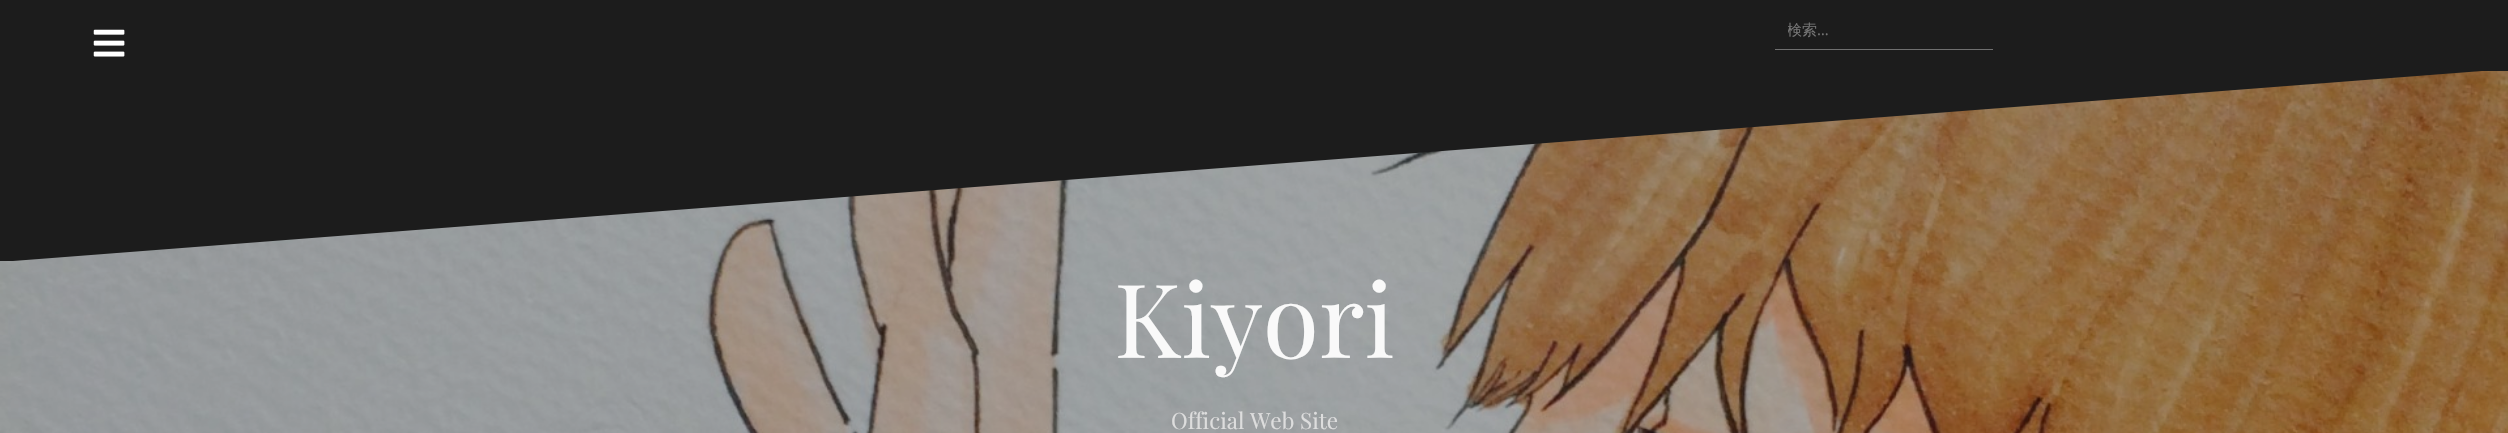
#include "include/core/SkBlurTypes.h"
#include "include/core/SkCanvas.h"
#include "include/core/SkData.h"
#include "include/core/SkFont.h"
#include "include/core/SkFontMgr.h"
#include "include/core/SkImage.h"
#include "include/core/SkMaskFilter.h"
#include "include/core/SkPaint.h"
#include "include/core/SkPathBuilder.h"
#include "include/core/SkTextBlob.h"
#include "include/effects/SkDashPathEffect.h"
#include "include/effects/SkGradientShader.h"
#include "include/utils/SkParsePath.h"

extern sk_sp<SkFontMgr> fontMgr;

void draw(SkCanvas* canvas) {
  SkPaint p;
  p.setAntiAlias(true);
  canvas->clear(SkColorSetRGB(28, 28, 28));
  canvas->drawImageRect(SkImages::DeferredFromEncodedData(SkData::MakeFromFileName("images/1.png")), SkRect::MakeLTRB(93, 29, 125, 57), SkSamplingOptions());
  p.setColor(SkColorSetRGB(111, 111, 111));
  canvas->drawRect(SkRect::MakeLTRB(1775, 49, 1993, 50), p);
  canvas->drawImageRect(SkImages::DeferredFromEncodedData(SkData::MakeFromFileName("images/2.png")), SkRect::MakeLTRB(0, 71, 2508, 433), SkSamplingOptions());
  canvas->save();
  canvas->clipRect(SkRect::MakeLTRB(0, 69, 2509, 261));
  p.setColor(SkColorSetRGB(28, 28, 28));
  canvas->drawPath(SkPathBuilder().moveTo(0, 262).lineTo(0, 69).lineTo(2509, 69).detach(), p);
  canvas->restore();
  canvas->save();
  canvas->clipRect(SkRect::MakeLTRB(1788, 19, 1975, 41));
  SkFont font1(fontMgr->matchFamilyStyle("WenQuanYi Zen Hei", SkFontStyle(500, SkFontStyle::kNormal_Width, SkFontStyle::kUpright_Slant)), 15);
  font1.setSubpixel(true);
  p.setColor(SkColorSetRGB(117, 117, 117));
  canvas->drawString("検索", 1787, 35, font1, p);
  canvas->restore();
  SkFont font2(fontMgr->matchFamilyStyle("Open Sans", SkFontStyle::Normal()), 15);
  font2.setSubpixel(true);
  canvas->drawString("…", 1817, 35, font2, p);
  SkFont font3(fontMgr->matchFamilyStyle("Playfair Display", SkFontStyle::Normal()), 102.5f);
  font3.setSubpixel(true);
  p.setColor(SkColorSetRGB(249, 249, 249));
  canvas->drawString("Kiyori", 1114, 358, font3, p);
  SkFont font4(fontMgr->matchFamilyStyle("Playfair Display", SkFontStyle::Normal()), 22.5f);
  font4.setSubpixel(true);
  p.setColor(SkColorSetRGB(221, 221, 221));
  canvas->drawString("Official Web Site", 1171, 429, font4, p);
}
